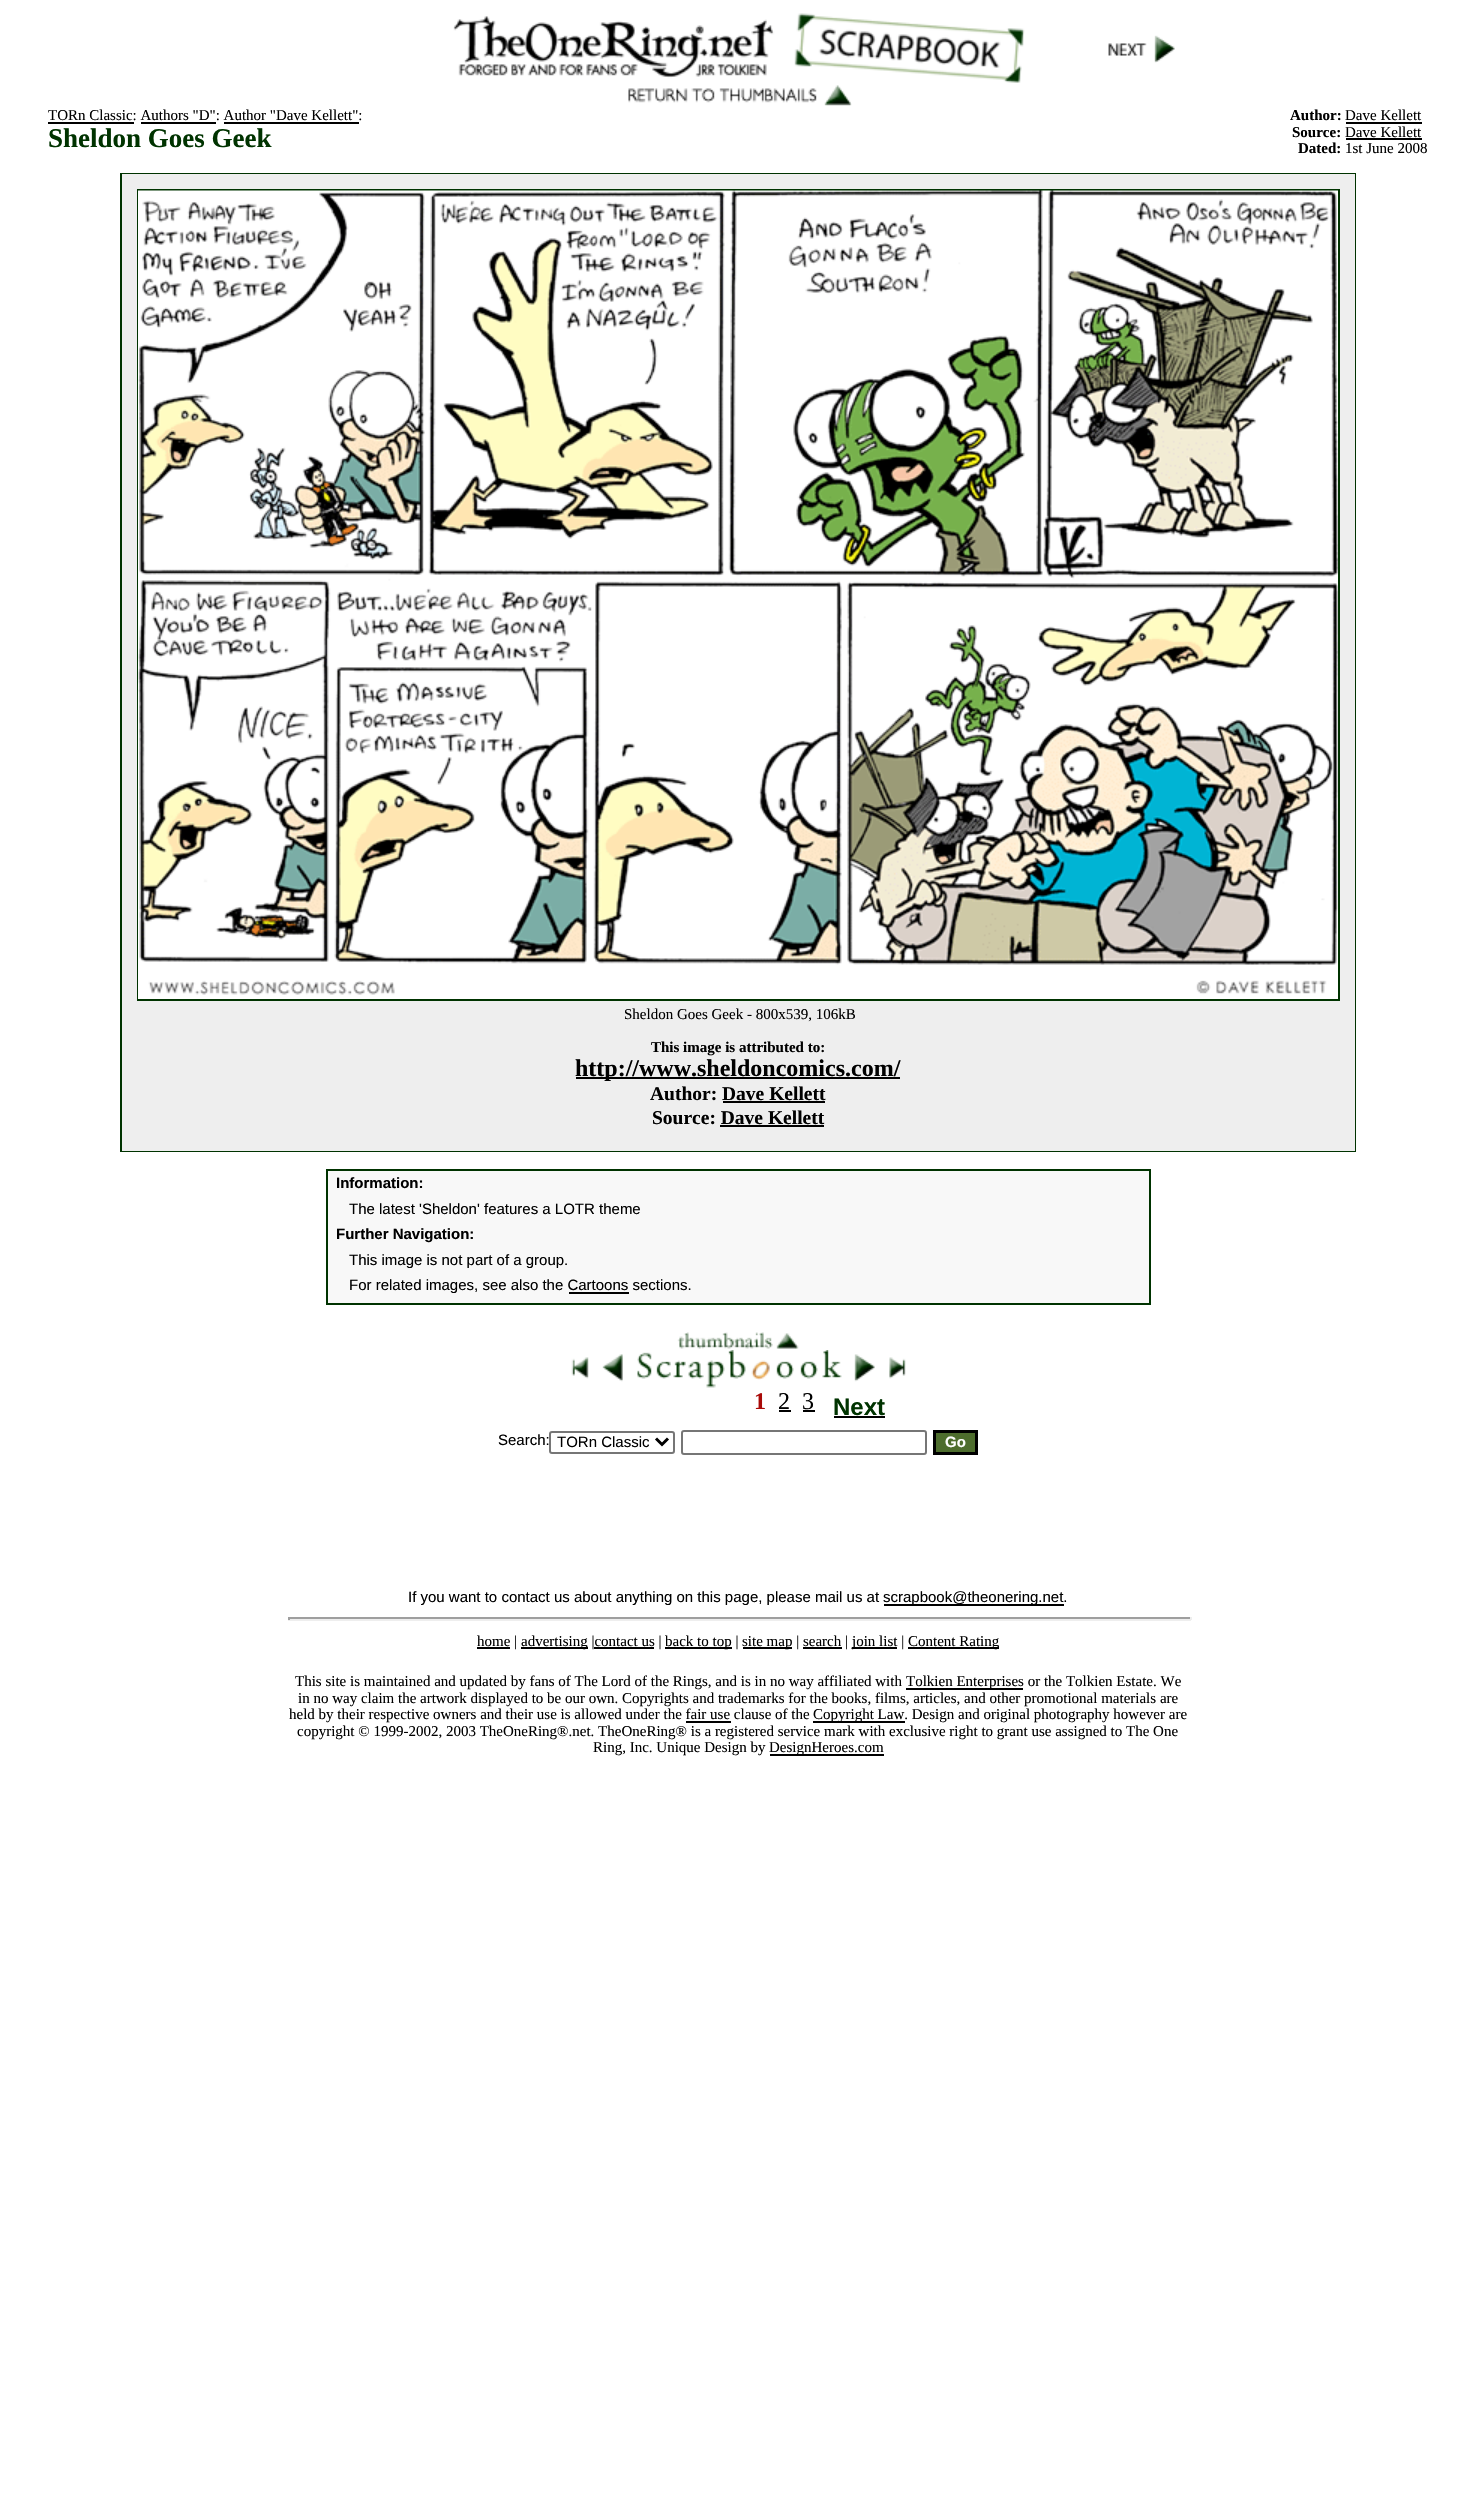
#include "include/core/SkBlurTypes.h"
#include "include/core/SkCanvas.h"
#include "include/core/SkData.h"
#include "include/core/SkFont.h"
#include "include/core/SkFontMgr.h"
#include "include/core/SkImage.h"
#include "include/core/SkMaskFilter.h"
#include "include/core/SkPaint.h"
#include "include/core/SkPathBuilder.h"
#include "include/core/SkTextBlob.h"
#include "include/effects/SkDashPathEffect.h"
#include "include/effects/SkGradientShader.h"
#include "include/utils/SkParsePath.h"

extern sk_sp<SkFontMgr> fontMgr;

void draw(SkCanvas* canvas) {
  SkPaint p;
  p.setAntiAlias(true);
  canvas->clear(SK_ColorWHITE);
  canvas->drawImageRect(SkImages::DeferredFromEncodedData(SkData::MakeFromFileName("images/1.png")), SkRect::MakeLTRB(453, 13, 1025, 83), SkSamplingOptions());
  canvas->drawImageRect(SkImages::DeferredFromEncodedData(SkData::MakeFromFileName("images/2.png")), SkRect::MakeLTRB(1108, 35, 1175, 63), SkSamplingOptions());
  canvas->drawImageRect(SkImages::DeferredFromEncodedData(SkData::MakeFromFileName("images/3.png")), SkRect::MakeLTRB(628, 85, 852, 106), SkSamplingOptions());
  p.setColor(SK_ColorBLACK);
  canvas->drawRect(SkRect::MakeLTRB(48, 122, 134, 124), p);
  canvas->drawRect(SkRect::MakeLTRB(141, 122, 216, 124), p);
  canvas->drawRect(SkRect::MakeLTRB(224, 122, 359, 124), p);
  canvas->drawRect(SkRect::MakeLTRB(1346, 122, 1422, 124), p);
  canvas->drawRect(SkRect::MakeLTRB(1346, 138, 1422, 140), p);
  p.setStyle(SkPaint::kStroke_Style);
  p.setStrokeWidth(2);
  p.setColor(SkColorSetRGB(0, 51, 0));
  canvas->drawRect(SkRect::MakeLTRB(121, 174, 1355, 1151), p);
  p.setStyle(SkPaint::kFill_Style);
  p.setColor(SkColorSetRGB(238, 238, 238));
  canvas->drawRect(SkRect::MakeLTRB(122, 174, 1355, 1151), p);
  p.setStyle(SkPaint::kStroke_Style);
  p.setColor(SkColorSetRGB(0, 51, 0));
  canvas->drawRect(SkRect::MakeLTRB(138, 190, 1339, 1000), p);
  canvas->drawImageRect(SkImages::DeferredFromEncodedData(SkData::MakeFromFileName("images/4.png")), SkRect::MakeLTRB(138, 190, 1338, 999), SkSamplingOptions());
  p.setStyle(SkPaint::kFill_Style);
  p.setColor(SK_ColorBLACK);
  canvas->drawRect(SkRect::MakeLTRB(576, 1077, 900, 1079), p);
  canvas->drawRect(SkRect::MakeLTRB(723, 1101, 825, 1103), p);
  canvas->drawRect(SkRect::MakeLTRB(720, 1125, 824, 1127), p);
  p.setColor(SkColorSetRGB(248, 248, 248));
  canvas->drawRect(SkRect::MakeLTRB(327, 1170, 1150, 1304), p);
  p.setStyle(SkPaint::kStroke_Style);
  p.setColor(SkColorSetRGB(0, 51, 0));
  canvas->drawRect(SkRect::MakeLTRB(327, 1170, 1150, 1304), p);
  p.setStyle(SkPaint::kFill_Style);
  p.setColor(SK_ColorBLACK);
  canvas->drawRect(SkRect::MakeLTRB(569, 1292, 629, 1294), p);
  canvas->drawImageRect(SkImages::DeferredFromEncodedData(SkData::MakeFromFileName("images/5.png")), SkRect::MakeLTRB(677, 1332, 799, 1349), SkSamplingOptions());
  canvas->drawImageRect(SkImages::DeferredFromEncodedData(SkData::MakeFromFileName("images/6.png")), SkRect::MakeLTRB(571, 1357, 589, 1379), SkSamplingOptions());
  canvas->drawImageRect(SkImages::DeferredFromEncodedData(SkData::MakeFromFileName("images/7.png")), SkRect::MakeLTRB(602, 1350, 746, 1388), SkSamplingOptions());
  canvas->drawImageRect(SkImages::DeferredFromEncodedData(SkData::MakeFromFileName("images/8.png")), SkRect::MakeLTRB(751, 1360, 770, 1380), SkSamplingOptions());
  canvas->drawImageRect(SkImages::DeferredFromEncodedData(SkData::MakeFromFileName("images/9.png")), SkRect::MakeLTRB(776, 1361, 794, 1379), SkSamplingOptions());
  canvas->drawRect(SkRect::MakeLTRB(779, 1410, 791, 1412), p);
  canvas->drawImageRect(SkImages::DeferredFromEncodedData(SkData::MakeFromFileName("images/9.png")), SkRect::MakeLTRB(800, 1361, 818, 1379), SkSamplingOptions());
  canvas->drawRect(SkRect::MakeLTRB(803, 1410, 815, 1412), p);
  canvas->drawImageRect(SkImages::DeferredFromEncodedData(SkData::MakeFromFileName("images/10.png")), SkRect::MakeLTRB(822, 1350, 875, 1382), SkSamplingOptions());
  canvas->drawImageRect(SkImages::DeferredFromEncodedData(SkData::MakeFromFileName("images/11.png")), SkRect::MakeLTRB(889, 1357, 906, 1379), SkSamplingOptions());
  canvas->drawRect(SkRect::MakeLTRB(834, 1416, 885, 1418), p);
  p.setStyle(SkPaint::kStroke_Style);
  p.setColor(SkColorSetRGB(118, 118, 118));
  canvas->drawRoundRect(SkRect::MakeLTRB(550, 1432, 674, 1453), 2, 2, p);
  p.setStrokeWidth(3);
  p.setColor(SK_ColorBLACK);
  canvas->drawPath(SkPathBuilder().moveTo(656, 1438.5f).lineTo(662, 1444.5f).lineTo(668, 1438.5f).detach(), p);
  p.setStrokeWidth(2);
  p.setColor(SkColorSetRGB(118, 118, 118));
  canvas->drawRoundRect(SkRect::MakeLTRB(682, 1431, 926, 1454), 2, 2, p);
  p.setStyle(SkPaint::kFill_Style);
  p.setColor(SkColorSetRGB(77, 109, 45));
  canvas->drawRect(SkRect::MakeLTRB(934.5f, 1431.5f, 976.5f, 1453.5f), p);
  p.setStyle(SkPaint::kStroke_Style);
  p.setStrokeWidth(3);
  p.setColor(SK_ColorBLACK);
  canvas->drawRect(SkRect::MakeLTRB(934.5f, 1431.5f, 976.5f, 1453.5f), p);
  p.setStyle(SkPaint::kFill_Style);
  canvas->drawRect(SkRect::MakeLTRB(884, 1604, 1064, 1606), p);
  p.setColor(SkColorSetRGB(159, 159, 159));
  canvas->drawRect(SkRect::MakeLTRB(288, 1617, 1191, 1619), p);
  p.setColor(SkColorSetRGB(238, 238, 238));
  canvas->drawRect(SkRect::MakeLTRB(1190, 1617, 1192, 1620), p);
  canvas->drawRect(SkRect::MakeLTRB(288, 1619, 1191, 1621), p);
  p.setColor(SkColorSetRGB(159, 159, 159));
  canvas->drawRect(SkRect::MakeLTRB(288, 1617, 290, 1620), p);
  p.setColor(SK_ColorBLACK);
  canvas->drawRect(SkRect::MakeLTRB(477, 1647, 510, 1649), p);
  canvas->drawRect(SkRect::MakeLTRB(521, 1647, 588, 1649), p);
  canvas->drawRect(SkRect::MakeLTRB(594, 1647, 654, 1649), p);
  canvas->drawRect(SkRect::MakeLTRB(665, 1647, 732, 1649), p);
  canvas->drawRect(SkRect::MakeLTRB(743, 1647, 792, 1649), p);
  canvas->drawRect(SkRect::MakeLTRB(803, 1647, 842, 1649), p);
  canvas->drawRect(SkRect::MakeLTRB(852, 1647, 897, 1649), p);
  canvas->drawRect(SkRect::MakeLTRB(908, 1647, 999, 1649), p);
  canvas->drawRect(SkRect::MakeLTRB(906, 1688, 1023, 1690), p);
  canvas->drawRect(SkRect::MakeLTRB(686, 1721, 731, 1723), p);
  canvas->drawRect(SkRect::MakeLTRB(813, 1721, 905, 1723), p);
  canvas->drawRect(SkRect::MakeLTRB(770, 1754, 884, 1756), p);
  SkFont font1(fontMgr->matchFamilyStyle("Liberation Serif", SkFontStyle::Normal()), 15);
  font1.setSubpixel(true);
  canvas->drawString("TORn Classic: Authors \"D\": Author \"Dave Kellett\":", 48, 120, font1, p);
  SkFont font2(fontMgr->matchFamilyStyle("Liberation Serif", SkFontStyle::Bold()), 27);
  font2.setSubpixel(true);
  p.setColor(SkColorSetRGB(0, 51, 0));
  canvas->drawString("Sheldon Goes Geek", 48, 147, font2, p);
  SkFont font3(fontMgr->matchFamilyStyle("Liberation Serif", SkFontStyle::Bold()), 15);
  font3.setSubpixel(true);
  p.setColor(SK_ColorBLACK);
  canvas->drawString("Author:", 1290, 120, font3, p);
  canvas->drawString("Dave Kellett", 1345, 120, font1, p);
  canvas->drawString("Source:", 1292, 137, font3, p);
  canvas->drawString("Dave Kellett", 1345, 137, font1, p);
  canvas->drawString("Dated:", 1298, 153, font3, p);
  canvas->drawString("1st June 2008", 1345, 153, font1, p);
  canvas->drawString("Sheldon Goes Geek - 800x539, 106kB", 624, 1019, font1, p);
  canvas->drawString("This image is attributed to:", 651, 1052, font3, p);
  SkFont font4(fontMgr->matchFamilyStyle("Liberation Serif", SkFontStyle::Bold()), 24);
  font4.setSubpixel(true);
  canvas->drawString("http://www.sheldoncomics.com/", 575, 1076, font4, p);
  SkFont font5(fontMgr->matchFamilyStyle("Liberation Serif", SkFontStyle::Bold()), 19.5f);
  font5.setSubpixel(true);
  canvas->drawString("Author: Dave Kellett", 650, 1100, font5, p);
  canvas->drawString("Source: Dave Kellett", 652, 1124, font5, p);
  SkFont font6(fontMgr->matchFamilyStyle("Liberation Sans", SkFontStyle::Bold()), 15);
  font6.setSubpixel(true);
  canvas->drawString("Information:", 336, 1188, font6, p);
  SkFont font7(fontMgr->matchFamilyStyle("Liberation Sans", SkFontStyle::Normal()), 15);
  font7.setSubpixel(true);
  canvas->drawString("The latest 'Sheldon' features a LOTR theme", 349, 1214, font7, p);
  canvas->drawString("Further Navigation:", 336, 1239, font6, p);
  canvas->drawString("This image is not part of a group.", 349, 1265, font7, p);
  canvas->drawString("For related images, see also the Cartoons sections.", 349, 1290, font7, p);
  p.setColor(SkColorSetRGB(169, 10, 8));
  canvas->drawString("1", 754, 1409, font4, p);
  SkFont font8(fontMgr->matchFamilyStyle("Liberation Serif", SkFontStyle::Normal()), 24);
  font8.setSubpixel(true);
  p.setColor(SK_ColorBLACK);
  canvas->drawString("2", 778, 1409, font8, p);
  canvas->drawString("3", 802, 1409, font8, p);
  SkFont font9(fontMgr->matchFamilyStyle("Liberation Sans", SkFontStyle::Bold()), 24);
  font9.setSubpixel(true);
  p.setColor(SkColorSetRGB(0, 51, 0));
  canvas->drawString("Next", 833, 1415, font9, p);
  p.setColor(SK_ColorBLACK);
  canvas->drawString("Search:", 498, 1445, font7, p);
  canvas->drawString("TORn Classic", 557, 1447, font7, p);
  p.setColor(SK_ColorWHITE);
  canvas->drawString("Go", 945, 1447, font6, p);
  p.setColor(SK_ColorBLACK);
  canvas->drawString("If you want to contact us about anything on this page, please mail us at", 408, 1602, font7, p);
  canvas->drawString("scrapbook@theonering.net.", 883, 1602, font7, p);
  canvas->drawString("home |", 477, 1646, font1, p);
  canvas->drawString("advertising |contact us |", 521, 1646, font1, p);
  canvas->drawString("back to top |", 665, 1646, font1, p);
  canvas->drawString("site map | search |", 742, 1646, font1, p);
  canvas->drawString("join list |", 852, 1646, font1, p);
  canvas->drawString("Content Rating", 908, 1646, font1, p);
  canvas->drawString("This site is maintained and updated by fans of The Lord of the Rings, and is in no way affiliated with", 295, 1686, font1, p);
  canvas->drawString("Tolkien Enterprises or the Tolkien Estate. We", 906, 1686, font1, p);
  canvas->drawString("in no way claim the artwork displayed to be our own. Copyrights and trademarks for the books, films, articles, and other promotional materials are", 298, 1703, font1, p);
  canvas->drawString("held by their respective owners and their use is allowed under the fair use clause of the", 289, 1719, font1, p);
  canvas->drawString("Copyright Law. Design and original photography however are", 813, 1719, font1, p);
  canvas->drawString("copyright © 1999-2002, 2003 TheOneRing®.net. TheOneRing® is a registered service mark with exclusive right to grant use assigned to The One", 297, 1736, font1, p);
  canvas->drawString("Ring, Inc. Unique Design by", 593, 1752, font1, p);
  canvas->drawString("DesignHeroes.com", 769, 1752, font1, p);
}
